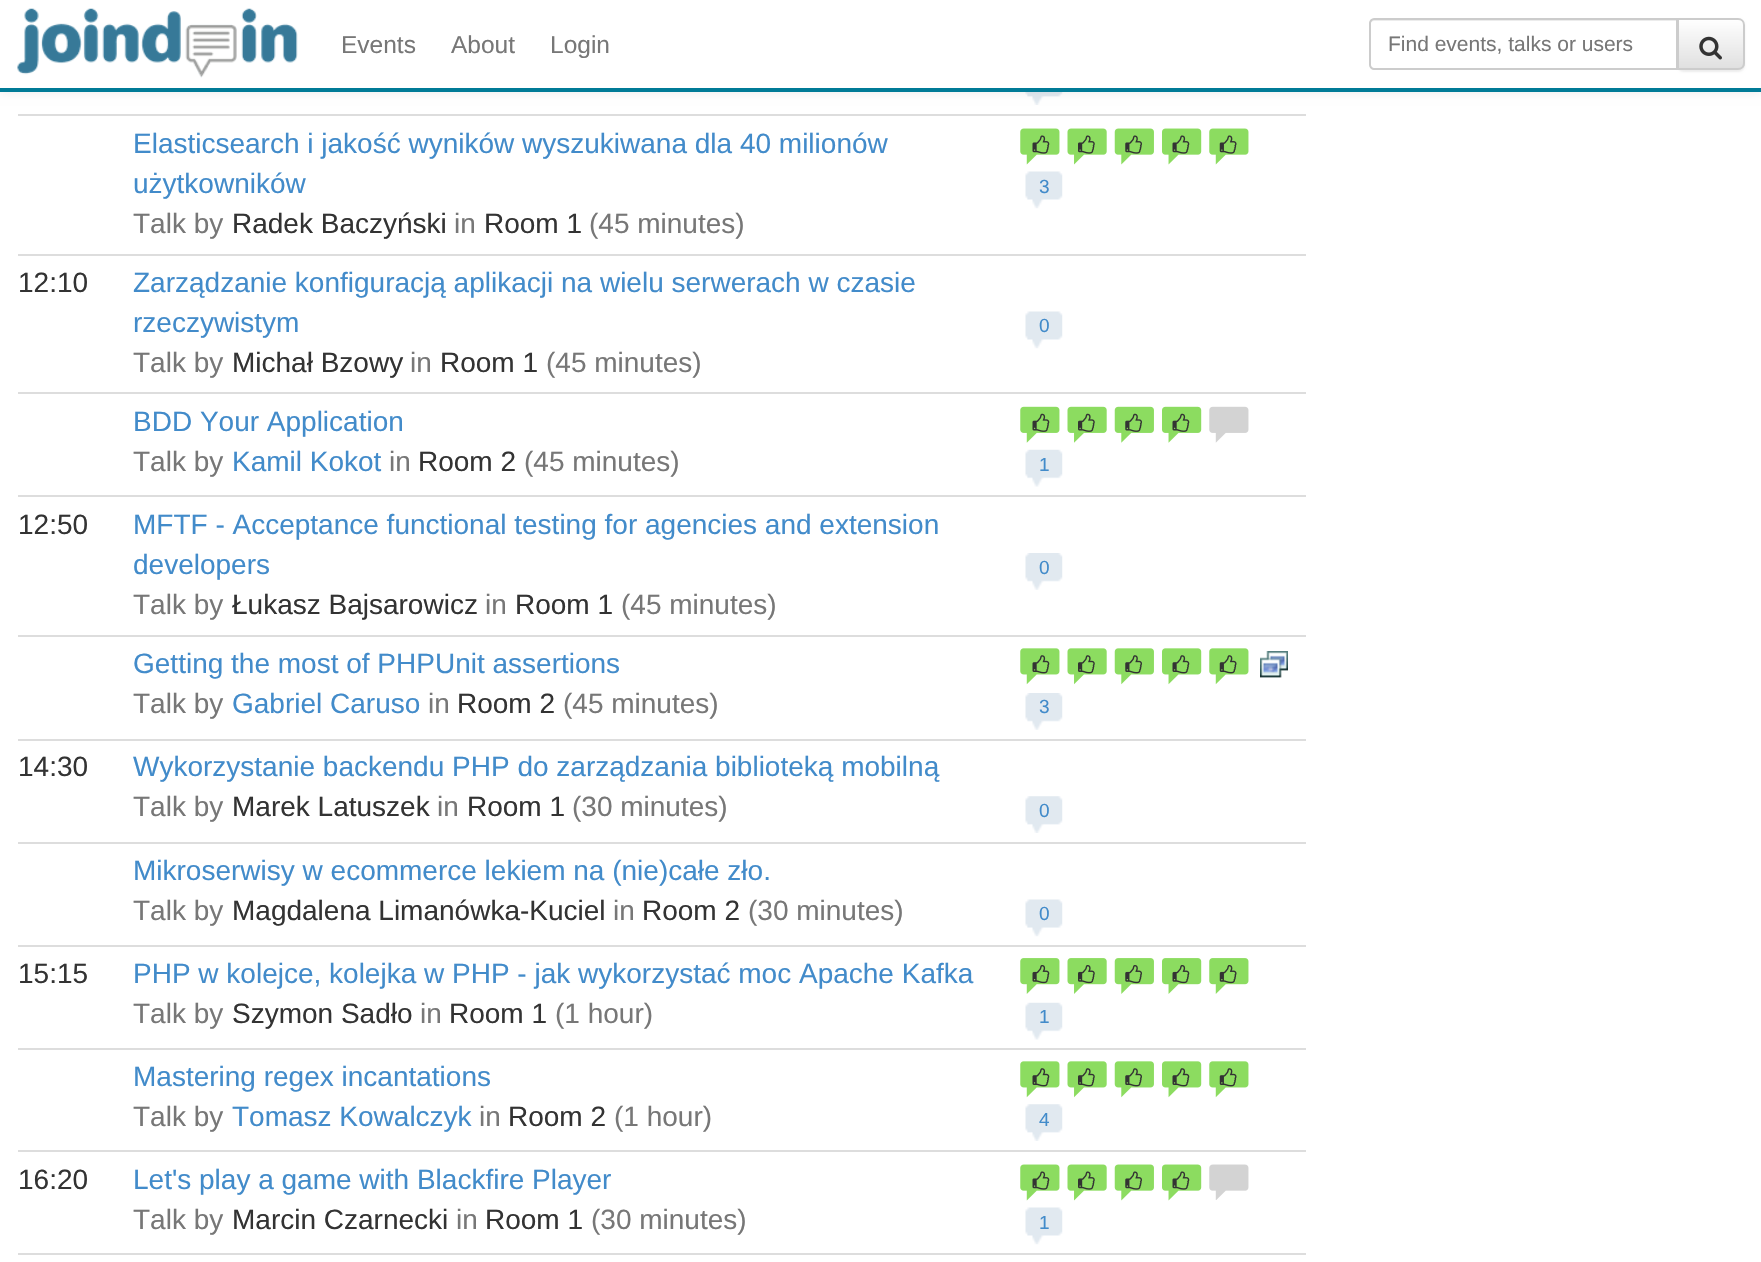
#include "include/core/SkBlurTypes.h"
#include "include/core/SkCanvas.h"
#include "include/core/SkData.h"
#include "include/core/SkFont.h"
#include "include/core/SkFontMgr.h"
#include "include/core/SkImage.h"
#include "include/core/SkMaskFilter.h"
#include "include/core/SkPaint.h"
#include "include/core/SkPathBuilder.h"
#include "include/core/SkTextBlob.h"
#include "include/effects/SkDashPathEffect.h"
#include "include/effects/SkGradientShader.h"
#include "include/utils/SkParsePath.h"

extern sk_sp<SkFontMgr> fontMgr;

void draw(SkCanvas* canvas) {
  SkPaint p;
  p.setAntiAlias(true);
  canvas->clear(SK_ColorWHITE);
  canvas->drawImageRect(SkImages::DeferredFromEncodedData(SkData::MakeFromFileName("images/3.png")), SkRect::MakeLTRB(1025, 92, 1063, 105), SkSamplingOptions());
  p.setColor(SkColorSetARGB(18, 0, 0, 0));
  p.setMaskFilter(SkMaskFilter::MakeBlur(kNormal_SkBlurStyle, 4.5f));
  canvas->drawRect(SkRect::MakeLTRB(0, 2, 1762, 93), p);
  p.setMaskFilter(nullptr);
  p.setColor(SK_ColorWHITE);
  canvas->drawRect(SkRect::MakeLTRB(0, 0, 1761, 88), p);
  p.setColor(SkColorSetRGB(0, 123, 151));
  canvas->drawRect(SkRect::MakeLTRB(0, 88, 1761, 92), p);
  canvas->drawImageRect(SkImages::DeferredFromEncodedData(SkData::MakeFromFileName("images/1.png")), SkRect::MakeLTRB(17, 8, 298, 78), SkSamplingOptions());
  p.setColor(SkColorSetARGB(18, 0, 0, 0));
  p.setMaskFilter(SkMaskFilter::MakeBlur(kNormal_SkBlurStyle, 1));
  canvas->drawRoundRect(SkRect::MakeLTRB(1677, 19, 1745, 72), 7, 7, p);
  p.setMaskFilter(nullptr);
  canvas->save();
  canvas->clipPath(SkPathBuilder().moveTo(1677, 18).lineTo(1738, 18).cubicTo(1742, 18, 1745, 21, 1745, 25).lineTo(1745, 63).cubicTo(1745, 67, 1742, 70, 1738, 70).lineTo(1677, 70).close().detach(), true);
  {
    const SkColor colors[] = {SK_ColorWHITE, SkColorSetRGB(224, 224, 224)};
    const float stops[] = {0, 1};
    const SkPoint ends[] = {{1711, 19}, {1711, 68}};
    p.setShader(SkGradientShader::MakeLinear(ends, colors, stops, 2, SkTileMode::kClamp));
    p.setAlpha(255);
  }
  canvas->drawRect(SkRect::MakeLTRB(1679, 19, 1745, 68), p);
  canvas->restore();
  p.setStyle(SkPaint::kStroke_Style);
  p.setStrokeWidth(2);
  p.setShader(nullptr);
  p.setColor(SkColorSetRGB(204, 204, 204));
  canvas->drawPath(SkPathBuilder().moveTo(1678, 19).lineTo(1738, 19).cubicTo(1741.5f, 19, 1744, 21.5f, 1744, 25).lineTo(1744, 63).cubicTo(1744, 66.5f, 1741.5f, 69, 1738, 69).lineTo(1678, 69).close().detach(), p);
  p.setStyle(SkPaint::kFill_Style);
  p.setColor(SK_ColorWHITE);
  canvas->drawPath(SkPathBuilder().moveTo(1374, 18).lineTo(1678, 18).lineTo(1678, 70).lineTo(1374, 70).cubicTo(1371, 70, 1369, 68, 1369, 65).lineTo(1369, 23).cubicTo(1369, 20, 1371, 18, 1374, 18).close().detach(), p);
  p.setColor(SkColorSetRGB(236, 236, 236));
  canvas->drawPath(SkPathBuilder().moveTo(1374, 21).lineTo(1676, 21).lineTo(1676, 68).lineTo(1677, 68).lineTo(1677, 19).lineTo(1374, 19).cubicTo(1372, 19, 1370, 21, 1370, 23).lineTo(1370, 24).cubicTo(1370, 23, 1372, 21, 1374, 21).close().detach(), p);
  p.setStyle(SkPaint::kStroke_Style);
  p.setColor(SkColorSetRGB(204, 204, 204));
  canvas->drawPath(SkPathBuilder().moveTo(1374, 19).lineTo(1677, 19).lineTo(1677, 69).lineTo(1374, 69).cubicTo(1372, 69, 1370, 67, 1370, 65).lineTo(1370, 23).cubicTo(1370, 21, 1372, 19, 1374, 19).close().detach(), p);
  canvas->drawImageRect(SkImages::DeferredFromEncodedData(SkData::MakeFromFileName("images/2.png")), SkRect::MakeLTRB(1699, 36, 1722, 60), SkSamplingOptions());
  p.setStyle(SkPaint::kFill_Style);
  p.setColor(SkColorSetRGB(221, 221, 221));
  canvas->drawRect(SkRect::MakeLTRB(18, 114, 1306, 116), p);
  canvas->drawImageRect(SkImages::DeferredFromEncodedData(SkData::MakeFromFileName("images/4.png")), SkRect::MakeLTRB(1020, 128, 1060, 165), SkSamplingOptions());
  canvas->drawImageRect(SkImages::DeferredFromEncodedData(SkData::MakeFromFileName("images/5.png")), SkRect::MakeLTRB(1032, 135, 1050, 154), SkSamplingOptions());
  canvas->drawImageRect(SkImages::DeferredFromEncodedData(SkData::MakeFromFileName("images/6.png")), SkRect::MakeLTRB(1067, 128, 1107, 165), SkSamplingOptions());
  canvas->drawImageRect(SkImages::DeferredFromEncodedData(SkData::MakeFromFileName("images/7.png")), SkRect::MakeLTRB(1078, 135, 1095, 154), SkSamplingOptions());
  canvas->drawImageRect(SkImages::DeferredFromEncodedData(SkData::MakeFromFileName("images/8.png")), SkRect::MakeLTRB(1114, 128, 1154, 165), SkSamplingOptions());
  canvas->drawImageRect(SkImages::DeferredFromEncodedData(SkData::MakeFromFileName("images/9.png")), SkRect::MakeLTRB(1125, 135, 1142, 154), SkSamplingOptions());
  canvas->drawImageRect(SkImages::DeferredFromEncodedData(SkData::MakeFromFileName("images/10.png")), SkRect::MakeLTRB(1162, 128, 1202, 165), SkSamplingOptions());
  canvas->drawImageRect(SkImages::DeferredFromEncodedData(SkData::MakeFromFileName("images/5.png")), SkRect::MakeLTRB(1172, 135, 1190, 154), SkSamplingOptions());
  canvas->drawImageRect(SkImages::DeferredFromEncodedData(SkData::MakeFromFileName("images/4.png")), SkRect::MakeLTRB(1209, 128, 1249, 165), SkSamplingOptions());
  canvas->drawImageRect(SkImages::DeferredFromEncodedData(SkData::MakeFromFileName("images/11.png")), SkRect::MakeLTRB(1219, 135, 1237, 154), SkSamplingOptions());
  canvas->drawImageRect(SkImages::DeferredFromEncodedData(SkData::MakeFromFileName("images/12.png")), SkRect::MakeLTRB(1025, 171, 1063, 209), SkSamplingOptions());
  canvas->drawRect(SkRect::MakeLTRB(18, 254, 1306, 256), p);
  canvas->drawImageRect(SkImages::DeferredFromEncodedData(SkData::MakeFromFileName("images/12.png")), SkRect::MakeLTRB(1025, 311, 1063, 349), SkSamplingOptions());
  canvas->drawRect(SkRect::MakeLTRB(18, 392, 1306, 394), p);
  canvas->drawImageRect(SkImages::DeferredFromEncodedData(SkData::MakeFromFileName("images/13.png")), SkRect::MakeLTRB(1020, 406, 1060, 443), SkSamplingOptions());
  canvas->drawImageRect(SkImages::DeferredFromEncodedData(SkData::MakeFromFileName("images/14.png")), SkRect::MakeLTRB(1032, 413, 1050, 432), SkSamplingOptions());
  canvas->drawImageRect(SkImages::DeferredFromEncodedData(SkData::MakeFromFileName("images/15.png")), SkRect::MakeLTRB(1067, 406, 1107, 443), SkSamplingOptions());
  canvas->drawImageRect(SkImages::DeferredFromEncodedData(SkData::MakeFromFileName("images/16.png")), SkRect::MakeLTRB(1078, 413, 1095, 432), SkSamplingOptions());
  canvas->drawImageRect(SkImages::DeferredFromEncodedData(SkData::MakeFromFileName("images/17.png")), SkRect::MakeLTRB(1114, 406, 1154, 443), SkSamplingOptions());
  canvas->drawImageRect(SkImages::DeferredFromEncodedData(SkData::MakeFromFileName("images/18.png")), SkRect::MakeLTRB(1125, 413, 1142, 432), SkSamplingOptions());
  canvas->drawImageRect(SkImages::DeferredFromEncodedData(SkData::MakeFromFileName("images/19.png")), SkRect::MakeLTRB(1162, 406, 1202, 443), SkSamplingOptions());
  canvas->drawImageRect(SkImages::DeferredFromEncodedData(SkData::MakeFromFileName("images/14.png")), SkRect::MakeLTRB(1172, 413, 1190, 432), SkSamplingOptions());
  canvas->drawImageRect(SkImages::DeferredFromEncodedData(SkData::MakeFromFileName("images/20.png")), SkRect::MakeLTRB(1209, 406, 1249, 443), SkSamplingOptions());
  canvas->drawImageRect(SkImages::DeferredFromEncodedData(SkData::MakeFromFileName("images/21.png")), SkRect::MakeLTRB(1025, 449, 1063, 487), SkSamplingOptions());
  canvas->drawRect(SkRect::MakeLTRB(18, 495, 1306, 497), p);
  canvas->drawImageRect(SkImages::DeferredFromEncodedData(SkData::MakeFromFileName("images/22.png")), SkRect::MakeLTRB(1025, 553, 1063, 590), SkSamplingOptions());
  canvas->drawRect(SkRect::MakeLTRB(18, 635, 1306, 637), p);
  canvas->drawImageRect(SkImages::DeferredFromEncodedData(SkData::MakeFromFileName("images/23.png")), SkRect::MakeLTRB(1020, 648, 1060, 685), SkSamplingOptions());
  canvas->drawImageRect(SkImages::DeferredFromEncodedData(SkData::MakeFromFileName("images/24.png")), SkRect::MakeLTRB(1032, 655, 1050, 674), SkSamplingOptions());
  canvas->drawImageRect(SkImages::DeferredFromEncodedData(SkData::MakeFromFileName("images/25.png")), SkRect::MakeLTRB(1067, 648, 1107, 685), SkSamplingOptions());
  canvas->drawImageRect(SkImages::DeferredFromEncodedData(SkData::MakeFromFileName("images/26.png")), SkRect::MakeLTRB(1078, 655, 1095, 674), SkSamplingOptions());
  canvas->drawImageRect(SkImages::DeferredFromEncodedData(SkData::MakeFromFileName("images/27.png")), SkRect::MakeLTRB(1114, 648, 1154, 685), SkSamplingOptions());
  canvas->drawImageRect(SkImages::DeferredFromEncodedData(SkData::MakeFromFileName("images/28.png")), SkRect::MakeLTRB(1125, 655, 1142, 674), SkSamplingOptions());
  canvas->drawImageRect(SkImages::DeferredFromEncodedData(SkData::MakeFromFileName("images/29.png")), SkRect::MakeLTRB(1162, 648, 1202, 685), SkSamplingOptions());
  canvas->drawImageRect(SkImages::DeferredFromEncodedData(SkData::MakeFromFileName("images/24.png")), SkRect::MakeLTRB(1172, 655, 1190, 674), SkSamplingOptions());
  canvas->drawImageRect(SkImages::DeferredFromEncodedData(SkData::MakeFromFileName("images/23.png")), SkRect::MakeLTRB(1209, 648, 1249, 685), SkSamplingOptions());
  canvas->drawImageRect(SkImages::DeferredFromEncodedData(SkData::MakeFromFileName("images/30.png")), SkRect::MakeLTRB(1219, 655, 1237, 674), SkSamplingOptions());
  canvas->drawImageRect(SkImages::DeferredFromEncodedData(SkData::MakeFromFileName("images/31.png")), SkRect::MakeLTRB(1260, 651, 1288, 678), SkSamplingOptions());
  canvas->drawImageRect(SkImages::DeferredFromEncodedData(SkData::MakeFromFileName("images/22.png")), SkRect::MakeLTRB(1025, 693, 1063, 730), SkSamplingOptions());
  canvas->drawRect(SkRect::MakeLTRB(18, 739, 1306, 741), p);
  canvas->drawImageRect(SkImages::DeferredFromEncodedData(SkData::MakeFromFileName("images/32.png")), SkRect::MakeLTRB(1025, 796, 1063, 833), SkSamplingOptions());
  canvas->drawRect(SkRect::MakeLTRB(18, 842, 1306, 844), p);
  canvas->drawImageRect(SkImages::DeferredFromEncodedData(SkData::MakeFromFileName("images/33.png")), SkRect::MakeLTRB(1025, 899, 1063, 937), SkSamplingOptions());
  canvas->drawRect(SkRect::MakeLTRB(18, 945, 1306, 947), p);
  canvas->drawImageRect(SkImages::DeferredFromEncodedData(SkData::MakeFromFileName("images/34.png")), SkRect::MakeLTRB(1020, 958, 1060, 994), SkSamplingOptions());
  canvas->drawImageRect(SkImages::DeferredFromEncodedData(SkData::MakeFromFileName("images/35.png")), SkRect::MakeLTRB(1032, 965, 1050, 984), SkSamplingOptions());
  canvas->drawImageRect(SkImages::DeferredFromEncodedData(SkData::MakeFromFileName("images/36.png")), SkRect::MakeLTRB(1067, 958, 1107, 994), SkSamplingOptions());
  canvas->drawImageRect(SkImages::DeferredFromEncodedData(SkData::MakeFromFileName("images/37.png")), SkRect::MakeLTRB(1078, 965, 1095, 984), SkSamplingOptions());
  canvas->drawImageRect(SkImages::DeferredFromEncodedData(SkData::MakeFromFileName("images/38.png")), SkRect::MakeLTRB(1114, 958, 1154, 994), SkSamplingOptions());
  canvas->drawImageRect(SkImages::DeferredFromEncodedData(SkData::MakeFromFileName("images/39.png")), SkRect::MakeLTRB(1125, 965, 1142, 984), SkSamplingOptions());
  canvas->drawImageRect(SkImages::DeferredFromEncodedData(SkData::MakeFromFileName("images/40.png")), SkRect::MakeLTRB(1162, 958, 1202, 994), SkSamplingOptions());
  canvas->drawImageRect(SkImages::DeferredFromEncodedData(SkData::MakeFromFileName("images/35.png")), SkRect::MakeLTRB(1172, 965, 1190, 984), SkSamplingOptions());
  canvas->drawImageRect(SkImages::DeferredFromEncodedData(SkData::MakeFromFileName("images/34.png")), SkRect::MakeLTRB(1209, 958, 1249, 994), SkSamplingOptions());
  canvas->drawImageRect(SkImages::DeferredFromEncodedData(SkData::MakeFromFileName("images/41.png")), SkRect::MakeLTRB(1219, 965, 1237, 984), SkSamplingOptions());
  canvas->drawImageRect(SkImages::DeferredFromEncodedData(SkData::MakeFromFileName("images/21.png")), SkRect::MakeLTRB(1025, 1002, 1063, 1040), SkSamplingOptions());
  canvas->drawRect(SkRect::MakeLTRB(18, 1048, 1306, 1050), p);
  canvas->drawImageRect(SkImages::DeferredFromEncodedData(SkData::MakeFromFileName("images/23.png")), SkRect::MakeLTRB(1020, 1061, 1060, 1098), SkSamplingOptions());
  canvas->drawImageRect(SkImages::DeferredFromEncodedData(SkData::MakeFromFileName("images/24.png")), SkRect::MakeLTRB(1032, 1068, 1050, 1087), SkSamplingOptions());
  canvas->drawImageRect(SkImages::DeferredFromEncodedData(SkData::MakeFromFileName("images/25.png")), SkRect::MakeLTRB(1067, 1061, 1107, 1098), SkSamplingOptions());
  canvas->drawImageRect(SkImages::DeferredFromEncodedData(SkData::MakeFromFileName("images/26.png")), SkRect::MakeLTRB(1078, 1068, 1095, 1087), SkSamplingOptions());
  canvas->drawImageRect(SkImages::DeferredFromEncodedData(SkData::MakeFromFileName("images/27.png")), SkRect::MakeLTRB(1114, 1061, 1154, 1098), SkSamplingOptions());
  canvas->drawImageRect(SkImages::DeferredFromEncodedData(SkData::MakeFromFileName("images/28.png")), SkRect::MakeLTRB(1125, 1068, 1142, 1087), SkSamplingOptions());
  canvas->drawImageRect(SkImages::DeferredFromEncodedData(SkData::MakeFromFileName("images/29.png")), SkRect::MakeLTRB(1162, 1061, 1202, 1098), SkSamplingOptions());
  canvas->drawImageRect(SkImages::DeferredFromEncodedData(SkData::MakeFromFileName("images/24.png")), SkRect::MakeLTRB(1172, 1068, 1190, 1087), SkSamplingOptions());
  canvas->drawImageRect(SkImages::DeferredFromEncodedData(SkData::MakeFromFileName("images/23.png")), SkRect::MakeLTRB(1209, 1061, 1249, 1098), SkSamplingOptions());
  canvas->drawImageRect(SkImages::DeferredFromEncodedData(SkData::MakeFromFileName("images/30.png")), SkRect::MakeLTRB(1219, 1068, 1237, 1087), SkSamplingOptions());
  canvas->drawImageRect(SkImages::DeferredFromEncodedData(SkData::MakeFromFileName("images/42.png")), SkRect::MakeLTRB(1025, 1104, 1063, 1141), SkSamplingOptions());
  canvas->drawRect(SkRect::MakeLTRB(18, 1150, 1306, 1152), p);
  canvas->drawImageRect(SkImages::DeferredFromEncodedData(SkData::MakeFromFileName("images/4.png")), SkRect::MakeLTRB(1020, 1164, 1060, 1201), SkSamplingOptions());
  canvas->drawImageRect(SkImages::DeferredFromEncodedData(SkData::MakeFromFileName("images/5.png")), SkRect::MakeLTRB(1032, 1171, 1050, 1190), SkSamplingOptions());
  canvas->drawImageRect(SkImages::DeferredFromEncodedData(SkData::MakeFromFileName("images/6.png")), SkRect::MakeLTRB(1067, 1164, 1107, 1201), SkSamplingOptions());
  canvas->drawImageRect(SkImages::DeferredFromEncodedData(SkData::MakeFromFileName("images/7.png")), SkRect::MakeLTRB(1078, 1171, 1095, 1190), SkSamplingOptions());
  canvas->drawImageRect(SkImages::DeferredFromEncodedData(SkData::MakeFromFileName("images/8.png")), SkRect::MakeLTRB(1114, 1164, 1154, 1201), SkSamplingOptions());
  canvas->drawImageRect(SkImages::DeferredFromEncodedData(SkData::MakeFromFileName("images/9.png")), SkRect::MakeLTRB(1125, 1171, 1142, 1190), SkSamplingOptions());
  canvas->drawImageRect(SkImages::DeferredFromEncodedData(SkData::MakeFromFileName("images/10.png")), SkRect::MakeLTRB(1162, 1164, 1202, 1201), SkSamplingOptions());
  canvas->drawImageRect(SkImages::DeferredFromEncodedData(SkData::MakeFromFileName("images/5.png")), SkRect::MakeLTRB(1172, 1171, 1190, 1190), SkSamplingOptions());
  canvas->drawImageRect(SkImages::DeferredFromEncodedData(SkData::MakeFromFileName("images/43.png")), SkRect::MakeLTRB(1209, 1164, 1249, 1200), SkSamplingOptions());
  canvas->drawImageRect(SkImages::DeferredFromEncodedData(SkData::MakeFromFileName("images/12.png")), SkRect::MakeLTRB(1025, 1207, 1063, 1245), SkSamplingOptions());
  canvas->drawRect(SkRect::MakeLTRB(18, 1253, 1306, 1255), p);
  SkFont font1(fontMgr->matchFamilyStyle("Liberation Sans", SkFontStyle::Normal()), 24.5f);
  font1.setSubpixel(true);
  p.setColor(SkColorSetRGB(119, 119, 119));
  canvas->drawString("Events", 341, 53, font1, p);
  canvas->drawString("About", 451, 53, font1, p);
  canvas->drawString("Login", 550, 53, font1, p);
  SkFont font2(fontMgr->matchFamilyStyle("Liberation Sans", SkFontStyle::Normal()), 21);
  font2.setSubpixel(true);
  canvas->drawString("Find events, talks or users", 1388, 51, font2, p);
  SkFont font3(fontMgr->matchFamilyStyle("Liberation Sans", SkFontStyle::Normal()), 28);
  font3.setSubpixel(true);
  p.setColor(SkColorSetRGB(66, 139, 202));
  canvas->drawString("Elasticsearch i jakość wyników wyszukiwana dla 40 milionów", 133, 153, font3, p);
  canvas->drawString("użytkowników", 133, 193, font3, p);
  SkFont font4(fontMgr->matchFamilyStyle("Liberation Sans", SkFontStyle::Normal()), 19);
  font4.setSubpixel(true);
  canvas->drawString("3", 1039, 193, font4, p);
  p.setColor(SkColorSetRGB(119, 119, 119));
  canvas->drawString("Talk by", 133, 233, font3, p);
  p.setColor(SkColorSetRGB(51, 51, 51));
  canvas->drawString("Radek Baczyński", 232, 233, font3, p);
  p.setColor(SkColorSetRGB(119, 119, 119));
  canvas->drawString("in", 454, 233, font3, p);
  p.setColor(SkColorSetRGB(51, 51, 51));
  canvas->drawString("Room 1", 484, 233, font3, p);
  p.setColor(SkColorSetRGB(119, 119, 119));
  canvas->drawString("(45 minutes)", 589, 233, font3, p);
  p.setColor(SkColorSetRGB(51, 51, 51));
  canvas->drawString("12:10", 18, 292, font3, p);
  p.setColor(SkColorSetRGB(66, 139, 202));
  canvas->drawString("Zarządzanie konfiguracją aplikacji na wielu serwerach w czasie", 133, 292, font3, p);
  canvas->drawString("rzeczywistym", 133, 332, font3, p);
  canvas->drawString("0", 1039, 332, font4, p);
  p.setColor(SkColorSetRGB(119, 119, 119));
  canvas->drawString("Talk by", 133, 372, font3, p);
  p.setColor(SkColorSetRGB(51, 51, 51));
  canvas->drawString("Michał Bzowy", 232, 372, font3, p);
  p.setColor(SkColorSetRGB(119, 119, 119));
  canvas->drawString("in", 410, 372, font3, p);
  p.setColor(SkColorSetRGB(51, 51, 51));
  canvas->drawString("Room 1", 440, 372, font3, p);
  p.setColor(SkColorSetRGB(119, 119, 119));
  canvas->drawString("(45 minutes)", 546, 372, font3, p);
  p.setColor(SkColorSetRGB(66, 139, 202));
  canvas->drawString("BDD Your Application", 133, 431, font3, p);
  p.setColor(SkColorSetRGB(119, 119, 119));
  canvas->drawString("Talk by", 133, 471, font3, p);
  p.setColor(SkColorSetRGB(66, 139, 202));
  canvas->drawString("Kamil Kokot", 232, 471, font3, p);
  p.setColor(SkColorSetRGB(119, 119, 119));
  canvas->drawString("in", 389, 471, font3, p);
  p.setColor(SkColorSetRGB(51, 51, 51));
  canvas->drawString("Room 2", 418, 471, font3, p);
  p.setColor(SkColorSetRGB(119, 119, 119));
  canvas->drawString("(45 minutes)", 524, 471, font3, p);
  p.setColor(SkColorSetRGB(66, 139, 202));
  canvas->drawString("1", 1039, 471, font4, p);
  p.setColor(SkColorSetRGB(51, 51, 51));
  canvas->drawString("12:50", 18, 534, font3, p);
  p.setColor(SkColorSetRGB(66, 139, 202));
  canvas->drawString("MFTF - Acceptance functional testing for agencies and extension", 133, 534, font3, p);
  canvas->drawString("developers", 133, 574, font3, p);
  canvas->drawString("0", 1039, 574, font4, p);
  p.setColor(SkColorSetRGB(119, 119, 119));
  canvas->drawString("Talk by", 133, 614, font3, p);
  p.setColor(SkColorSetRGB(51, 51, 51));
  canvas->drawString("Łukasz Bajsarowicz", 232, 614, font3, p);
  p.setColor(SkColorSetRGB(119, 119, 119));
  canvas->drawString("in", 485, 614, font3, p);
  p.setColor(SkColorSetRGB(51, 51, 51));
  canvas->drawString("Room 1", 515, 614, font3, p);
  p.setColor(SkColorSetRGB(119, 119, 119));
  canvas->drawString("(45 minutes)", 621, 614, font3, p);
  p.setColor(SkColorSetRGB(66, 139, 202));
  canvas->drawString("Getting the most of PHPUnit assertions", 133, 673, font3, p);
  p.setColor(SkColorSetRGB(119, 119, 119));
  canvas->drawString("Talk by", 133, 713, font3, p);
  p.setColor(SkColorSetRGB(66, 139, 202));
  canvas->drawString("Gabriel Caruso", 232, 713, font3, p);
  p.setColor(SkColorSetRGB(119, 119, 119));
  canvas->drawString("in", 428, 713, font3, p);
  p.setColor(SkColorSetRGB(51, 51, 51));
  canvas->drawString("Room 2", 457, 713, font3, p);
  p.setColor(SkColorSetRGB(119, 119, 119));
  canvas->drawString("(45 minutes)", 563, 713, font3, p);
  p.setColor(SkColorSetRGB(66, 139, 202));
  canvas->drawString("3", 1039, 713, font4, p);
  p.setColor(SkColorSetRGB(51, 51, 51));
  canvas->drawString("14:30", 18, 776, font3, p);
  p.setColor(SkColorSetRGB(66, 139, 202));
  canvas->drawString("Wykorzystanie backendu PHP do zarządzania biblioteką mobilną", 133, 776, font3, p);
  p.setColor(SkColorSetRGB(119, 119, 119));
  canvas->drawString("Talk by", 133, 816, font3, p);
  p.setColor(SkColorSetRGB(51, 51, 51));
  canvas->drawString("Marek Latuszek", 232, 816, font3, p);
  p.setColor(SkColorSetRGB(119, 119, 119));
  canvas->drawString("in", 437, 816, font3, p);
  p.setColor(SkColorSetRGB(51, 51, 51));
  canvas->drawString("Room 1", 467, 816, font3, p);
  p.setColor(SkColorSetRGB(119, 119, 119));
  canvas->drawString("(30 minutes)", 572, 816, font3, p);
  p.setColor(SkColorSetRGB(66, 139, 202));
  canvas->drawString("0", 1039, 817, font4, p);
  canvas->drawString("Mikroserwisy w ecommerce lekiem na (nie)całe zło.", 133, 880, font3, p);
  p.setColor(SkColorSetRGB(119, 119, 119));
  canvas->drawString("Talk by", 133, 920, font3, p);
  p.setColor(SkColorSetRGB(51, 51, 51));
  canvas->drawString("Magdalena Limanówka-Kuciel", 232, 920, font3, p);
  p.setColor(SkColorSetRGB(119, 119, 119));
  canvas->drawString("in", 613, 920, font3, p);
  p.setColor(SkColorSetRGB(51, 51, 51));
  canvas->drawString("Room 2", 642, 920, font3, p);
  p.setColor(SkColorSetRGB(119, 119, 119));
  canvas->drawString("(30 minutes)", 748, 920, font3, p);
  p.setColor(SkColorSetRGB(66, 139, 202));
  canvas->drawString("0", 1039, 920, font4, p);
  p.setColor(SkColorSetRGB(51, 51, 51));
  canvas->drawString("15:15", 18, 983, font3, p);
  p.setColor(SkColorSetRGB(66, 139, 202));
  canvas->drawString("PHP w kolejce, kolejka w PHP - jak wykorzystać moc Apache Kafka", 133, 983, font3, p);
  p.setColor(SkColorSetRGB(119, 119, 119));
  canvas->drawString("Talk by", 133, 1023, font3, p);
  p.setColor(SkColorSetRGB(51, 51, 51));
  canvas->drawString("Szymon Sadło", 232, 1023, font3, p);
  p.setColor(SkColorSetRGB(119, 119, 119));
  canvas->drawString("in", 420, 1023, font3, p);
  p.setColor(SkColorSetRGB(51, 51, 51));
  canvas->drawString("Room 1", 449, 1023, font3, p);
  p.setColor(SkColorSetRGB(119, 119, 119));
  canvas->drawString("(1 hour)", 555, 1023, font3, p);
  p.setColor(SkColorSetRGB(66, 139, 202));
  canvas->drawString("1", 1039, 1023, font4, p);
  canvas->drawString("Mastering regex incantations", 133, 1086, font3, p);
  p.setColor(SkColorSetRGB(119, 119, 119));
  canvas->drawString("Talk by", 133, 1126, font3, p);
  p.setColor(SkColorSetRGB(66, 139, 202));
  canvas->drawString("Tomasz Kowalczyk", 232, 1126, font3, p);
  p.setColor(SkColorSetRGB(119, 119, 119));
  canvas->drawString("in", 479, 1126, font3, p);
  p.setColor(SkColorSetRGB(51, 51, 51));
  canvas->drawString("Room 2", 508, 1126, font3, p);
  p.setColor(SkColorSetRGB(119, 119, 119));
  canvas->drawString("(1 hour)", 614, 1126, font3, p);
  p.setColor(SkColorSetRGB(66, 139, 202));
  canvas->drawString("4", 1039, 1126, font4, p);
  p.setColor(SkColorSetRGB(51, 51, 51));
  canvas->drawString("16:20", 18, 1189, font3, p);
  p.setColor(SkColorSetRGB(66, 139, 202));
  canvas->drawString("Let's play a game with Blackfire Player", 133, 1189, font3, p);
  p.setColor(SkColorSetRGB(119, 119, 119));
  canvas->drawString("Talk by", 133, 1229, font3, p);
  p.setColor(SkColorSetRGB(51, 51, 51));
  canvas->drawString("Marcin Czarnecki", 232, 1229, font3, p);
  p.setColor(SkColorSetRGB(119, 119, 119));
  canvas->drawString("in", 456, 1229, font3, p);
  p.setColor(SkColorSetRGB(51, 51, 51));
  canvas->drawString("Room 1", 485, 1229, font3, p);
  p.setColor(SkColorSetRGB(119, 119, 119));
  canvas->drawString("(30 minutes)", 591, 1229, font3, p);
  p.setColor(SkColorSetRGB(66, 139, 202));
  canvas->drawString("1", 1039, 1229, font4, p);
}
